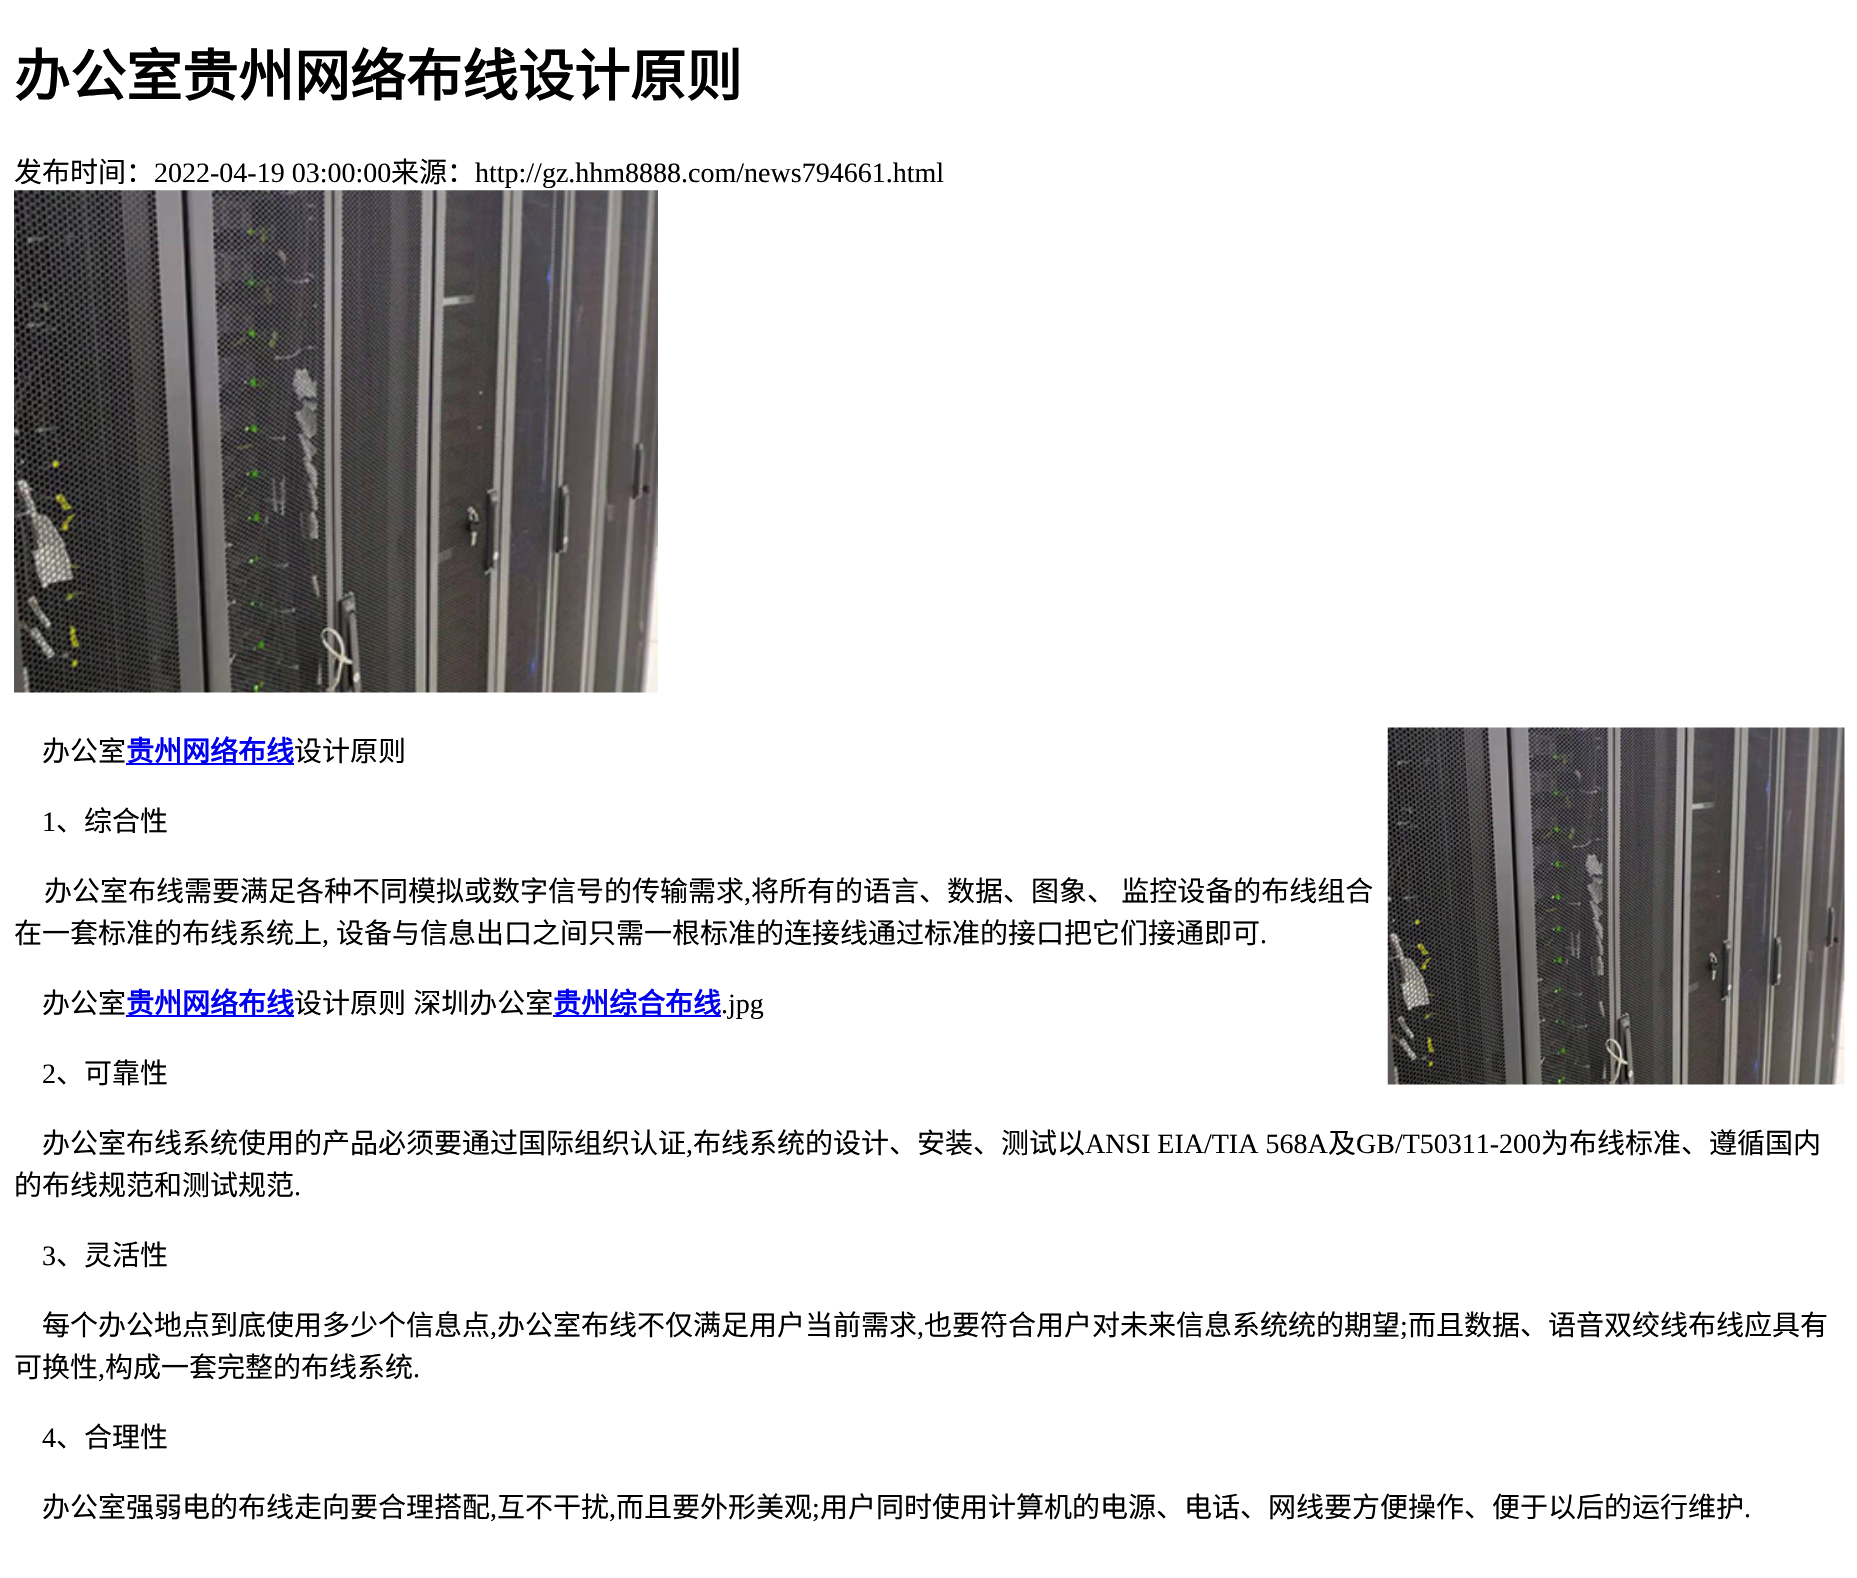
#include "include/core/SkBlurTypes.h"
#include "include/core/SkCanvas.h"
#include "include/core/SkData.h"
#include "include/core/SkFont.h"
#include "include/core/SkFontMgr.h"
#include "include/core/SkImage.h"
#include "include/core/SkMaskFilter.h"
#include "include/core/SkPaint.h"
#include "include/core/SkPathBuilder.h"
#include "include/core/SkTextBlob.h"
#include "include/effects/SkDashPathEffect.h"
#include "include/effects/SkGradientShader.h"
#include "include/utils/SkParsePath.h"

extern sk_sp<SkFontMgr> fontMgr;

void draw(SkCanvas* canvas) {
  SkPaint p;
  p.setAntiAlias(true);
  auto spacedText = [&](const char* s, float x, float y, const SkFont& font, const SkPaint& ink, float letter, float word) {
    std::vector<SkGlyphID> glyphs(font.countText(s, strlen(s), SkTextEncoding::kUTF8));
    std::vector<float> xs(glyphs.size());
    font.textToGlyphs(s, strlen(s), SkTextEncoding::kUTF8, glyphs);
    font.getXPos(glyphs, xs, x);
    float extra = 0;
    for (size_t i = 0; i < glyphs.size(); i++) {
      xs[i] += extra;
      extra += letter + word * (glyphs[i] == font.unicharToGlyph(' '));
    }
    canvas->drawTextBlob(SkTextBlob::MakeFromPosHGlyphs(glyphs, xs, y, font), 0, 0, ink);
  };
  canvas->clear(SK_ColorWHITE);
  canvas->drawImageRect(SkImages::DeferredFromEncodedData(SkData::MakeFromFileName("images/1.png")), SkRect::MakeLTRB(14, 190, 658, 693), SkSamplingOptions());
  p.setColor(SkColorSetRGB(0, 0, 238));
  canvas->drawRect(SkRect::MakeLTRB(126, 763, 294, 765), p);
  canvas->drawImageRect(SkImages::DeferredFromEncodedData(SkData::MakeFromFileName("images/2.png")), SkRect::MakeLTRB(1387, 727, 1845, 1085), SkSamplingOptions());
  canvas->drawRect(SkRect::MakeLTRB(126, 1015, 294, 1017), p);
  canvas->drawRect(SkRect::MakeLTRB(553, 1015, 721, 1017), p);
  SkFont font1(fontMgr->matchFamilyStyle("Noto Sans CJK SC", SkFontStyle::Bold()), 56);
  font1.setSubpixel(true);
  p.setColor(SK_ColorBLACK);
  canvas->drawString("办公室贵州网络布线设计原则", 14, 96, font1, p);
  SkFont font2(fontMgr->matchFamilyStyle("Noto Sans CJK SC", SkFontStyle::Normal()), 28);
  font2.setSubpixel(true);
  canvas->drawString("发布时间：", 14, 182, font2, p);
  SkFont font3(fontMgr->matchFamilyStyle("Liberation Serif", SkFontStyle::Normal()), 28);
  font3.setSubpixel(true);
  canvas->drawString("2022-04-19 03:00:00", 154, 182, font3, p);
  canvas->drawString("来源：", 391, 182, font2, p);
  canvas->drawString("http://gz.hhm8888.com/news794661.html", 475, 182, font3, p);
  canvas->drawString("办公室", 42, 761, font2, p);
  SkFont font4(fontMgr->matchFamilyStyle("Noto Sans CJK SC", SkFontStyle::Bold()), 28);
  font4.setSubpixel(true);
  p.setColor(SkColorSetRGB(0, 0, 238));
  canvas->drawString("贵州网络布线", 126, 761, font4, p);
  p.setColor(SK_ColorBLACK);
  canvas->drawString("设计原则", 294, 761, font2, p);
  canvas->drawString("1", 42, 831, font3, p);
  canvas->drawString("、综合性", 56, 831, font2, p);
  canvas->drawString("办公室布线需要满足各种不同模拟或数字信号的传输需求", 44, 901, font2, p);
  canvas->drawString(",", 744, 901, font3, p);
  canvas->drawString("将所有的语言、数据、图象、 监控设备的布线组合", 751, 901, font2, p);
  canvas->drawString("在一套标准的布线系统上", 14, 943, font2, p);
  canvas->drawString(",", 322, 943, font3, p);
  canvas->drawString("设备与信息出口之间只需一根标准的连接线通过标准的接口把它们接通即可", 336, 943, font2, p);
  canvas->drawString(".", 1260, 943, font3, p);
  canvas->drawString("办公室", 42, 1013, font2, p);
  p.setColor(SkColorSetRGB(0, 0, 238));
  canvas->drawString("贵州网络布线", 126, 1013, font4, p);
  p.setColor(SK_ColorBLACK);
  spacedText("设计原则 深圳办公室", 294, 1013, font2, p, 0, 1);
  p.setColor(SkColorSetRGB(0, 0, 238));
  canvas->drawString("贵州综合布线", 553, 1013, font4, p);
  p.setColor(SK_ColorBLACK);
  canvas->drawString(".jpg", 721, 1013, font3, p);
  canvas->drawString("2", 42, 1083, font3, p);
  canvas->drawString("、可靠性", 56, 1083, font2, p);
  canvas->drawString("办公室布线系统使用的产品必须要通过国际组织认证", 42, 1153, font2, p);
  canvas->drawString(",", 686, 1153, font3, p);
  canvas->drawString("布线系统的设计、安装、测试以", 693, 1153, font2, p);
  canvas->drawString("ANSI EIA/TIA 568A", 1085, 1153, font3, p);
  canvas->drawString("及", 1328, 1153, font2, p);
  canvas->drawString("GB/T50311-200", 1356, 1153, font3, p);
  canvas->drawString("为布线标准、遵循国内", 1541, 1153, font2, p);
  canvas->drawString("的布线规范和测试规范", 14, 1195, font2, p);
  canvas->drawString(".", 294, 1195, font3, p);
  canvas->drawString("3", 42, 1265, font3, p);
  canvas->drawString("、灵活性", 56, 1265, font2, p);
  canvas->drawString("每个办公地点到底使用多少个信息点", 42, 1335, font2, p);
  canvas->drawString(",", 490, 1335, font3, p);
  canvas->drawString("办公室布线不仅满足用户当前需求", 497, 1335, font2, p);
  canvas->drawString(",", 917, 1335, font3, p);
  canvas->drawString("也要符合用户对未来信息系统统的期望", 924, 1335, font2, p);
  canvas->drawString(";", 1400, 1335, font3, p);
  canvas->drawString("而且数据、语音双绞线布线应具有", 1408, 1335, font2, p);
  canvas->drawString("可换性", 14, 1377, font2, p);
  canvas->drawString(",", 98, 1377, font3, p);
  canvas->drawString("构成一套完整的布线系统", 105, 1377, font2, p);
  canvas->drawString(".", 413, 1377, font3, p);
  canvas->drawString("4", 42, 1447, font3, p);
  canvas->drawString("、合理性", 56, 1447, font2, p);
  canvas->drawString("办公室强弱电的布线走向要合理搭配", 42, 1517, font2, p);
  canvas->drawString(",", 490, 1517, font3, p);
  canvas->drawString("互不干扰", 497, 1517, font2, p);
  canvas->drawString(",", 609, 1517, font3, p);
  canvas->drawString("而且要外形美观", 616, 1517, font2, p);
  canvas->drawString(";", 812, 1517, font3, p);
  canvas->drawString("用户同时使用计算机的电源、电话、网线要方便操作、便于以后的运行维护", 820, 1517, font2, p);
  canvas->drawString(".", 1744, 1517, font3, p);
}
